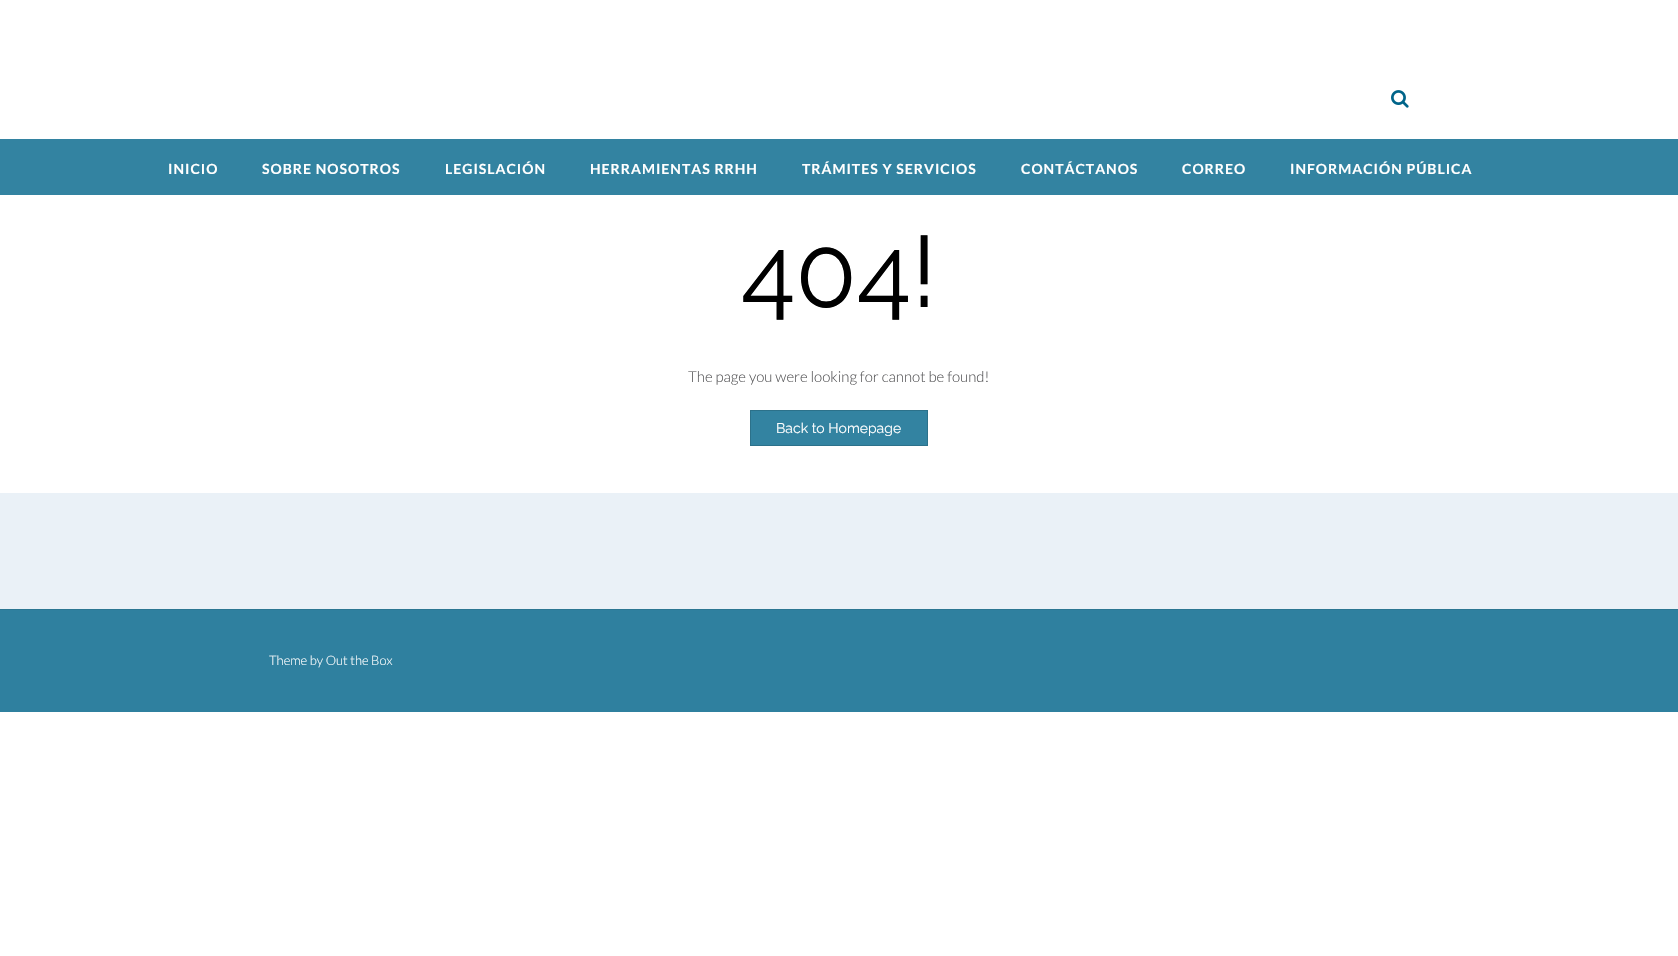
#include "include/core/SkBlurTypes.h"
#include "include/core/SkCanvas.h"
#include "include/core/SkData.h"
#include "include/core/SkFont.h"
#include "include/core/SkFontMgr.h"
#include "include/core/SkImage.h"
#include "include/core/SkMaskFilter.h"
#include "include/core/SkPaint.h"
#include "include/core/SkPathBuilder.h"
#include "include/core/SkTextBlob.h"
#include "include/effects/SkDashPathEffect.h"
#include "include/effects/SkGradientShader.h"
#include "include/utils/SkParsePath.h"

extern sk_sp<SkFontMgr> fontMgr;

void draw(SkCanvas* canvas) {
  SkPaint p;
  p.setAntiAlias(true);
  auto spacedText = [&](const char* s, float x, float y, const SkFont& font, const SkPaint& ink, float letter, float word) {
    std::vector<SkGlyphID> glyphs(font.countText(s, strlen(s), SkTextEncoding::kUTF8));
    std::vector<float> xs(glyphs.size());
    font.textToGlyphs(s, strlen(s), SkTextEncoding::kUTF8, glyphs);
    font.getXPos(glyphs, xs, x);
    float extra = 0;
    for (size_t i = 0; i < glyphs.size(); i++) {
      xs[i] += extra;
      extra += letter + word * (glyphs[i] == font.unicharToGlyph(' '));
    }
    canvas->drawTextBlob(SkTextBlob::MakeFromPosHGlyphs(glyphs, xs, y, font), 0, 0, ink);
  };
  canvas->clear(SK_ColorWHITE);
  canvas->drawImageRect(SkImages::DeferredFromEncodedData(SkData::MakeFromFileName("images/1.png")), SkRect::MakeLTRB(1391, 90, 1409, 108), SkSamplingOptions());
  p.setColor(SkColorSetRGB(51, 131, 161));
  canvas->drawRect(SkRect::MakeLTRB(0, 139, 1678, 195), p);
  canvas->drawRect(SkRect::MakeLTRB(750.5f, 410.5f, 927.5f, 445.5f), p);
  p.setStyle(SkPaint::kStroke_Style);
  p.setStrokeWidth(1);
  p.setColor(SkColorSetRGB(44, 113, 138));
  canvas->drawRect(SkRect::MakeLTRB(750.5f, 410.5f, 927.5f, 445.5f), p);
  p.setStyle(SkPaint::kFill_Style);
  p.setColor(SkColorSetRGB(234, 241, 247));
  canvas->drawRect(SkRect::MakeLTRB(0, 493, 1678, 609), p);
  p.setColor(SkColorSetRGB(47, 128, 159));
  canvas->drawRect(SkRect::MakeLTRB(0, 610, 1678, 712), p);
  p.setColor(SkColorSetRGB(43, 118, 146));
  canvas->drawRect(SkRect::MakeLTRB(0, 609, 1678, 610), p);
  SkFont font1(fontMgr->matchFamilyStyle("Lato", SkFontStyle::Bold()), 14);
  font1.setSubpixel(true);
  p.setColor(SK_ColorWHITE);
  spacedText("INICIO", 168, 174, font1, p, 1, 0);
  spacedText("SOBRE NOSOTROS", 262, 174, font1, p, 1, 0);
  spacedText("LEGISLACIÓN", 445, 174, font1, p, 1, 0);
  spacedText("HERRAMIENTAS RRHH", 590, 174, font1, p, 1, 0);
  spacedText("TRÁMITES Y SERVICIOS", 802, 174, font1, p, 1, 0);
  spacedText("CONTÁCTANOS", 1021, 174, font1, p, 1, 0);
  spacedText("CORREO", 1182, 174, font1, p, 1, 0);
  spacedText("INFORMACIÓN PÚBLICA", 1290, 174, font1, p, 1, 0);
  SkFont font2(fontMgr->matchFamilyStyle("Raleway", SkFontStyle::Normal()), 100);
  font2.setSubpixel(true);
  p.setColor(SK_ColorBLACK);
  canvas->drawString("404!", 741, 307, font2, p);
  SkFont font3(fontMgr->matchFamilyStyle("Lato", SkFontStyle(300, SkFontStyle::kNormal_Width, SkFontStyle::kUpright_Slant)), 15);
  font3.setSubpixel(true);
  p.setColor(SkColorSetRGB(88, 88, 90));
  canvas->drawString("The page you were looking for cannot be found!", 688, 382, font3, p);
  SkFont font4(fontMgr->matchFamilyStyle("Raleway", SkFontStyle::Normal()), 14);
  font4.setSubpixel(true);
  p.setColor(SK_ColorWHITE);
  canvas->drawString("Back to Homepage", 776, 433, font4, p);
  SkFont font5(fontMgr->matchFamilyStyle("Lato", SkFontStyle(300, SkFontStyle::kNormal_Width, SkFontStyle::kUpright_Slant)), 13);
  font5.setSubpixel(true);
  canvas->drawString("Theme by Out the Box", 269, 665, font5, p);
}
